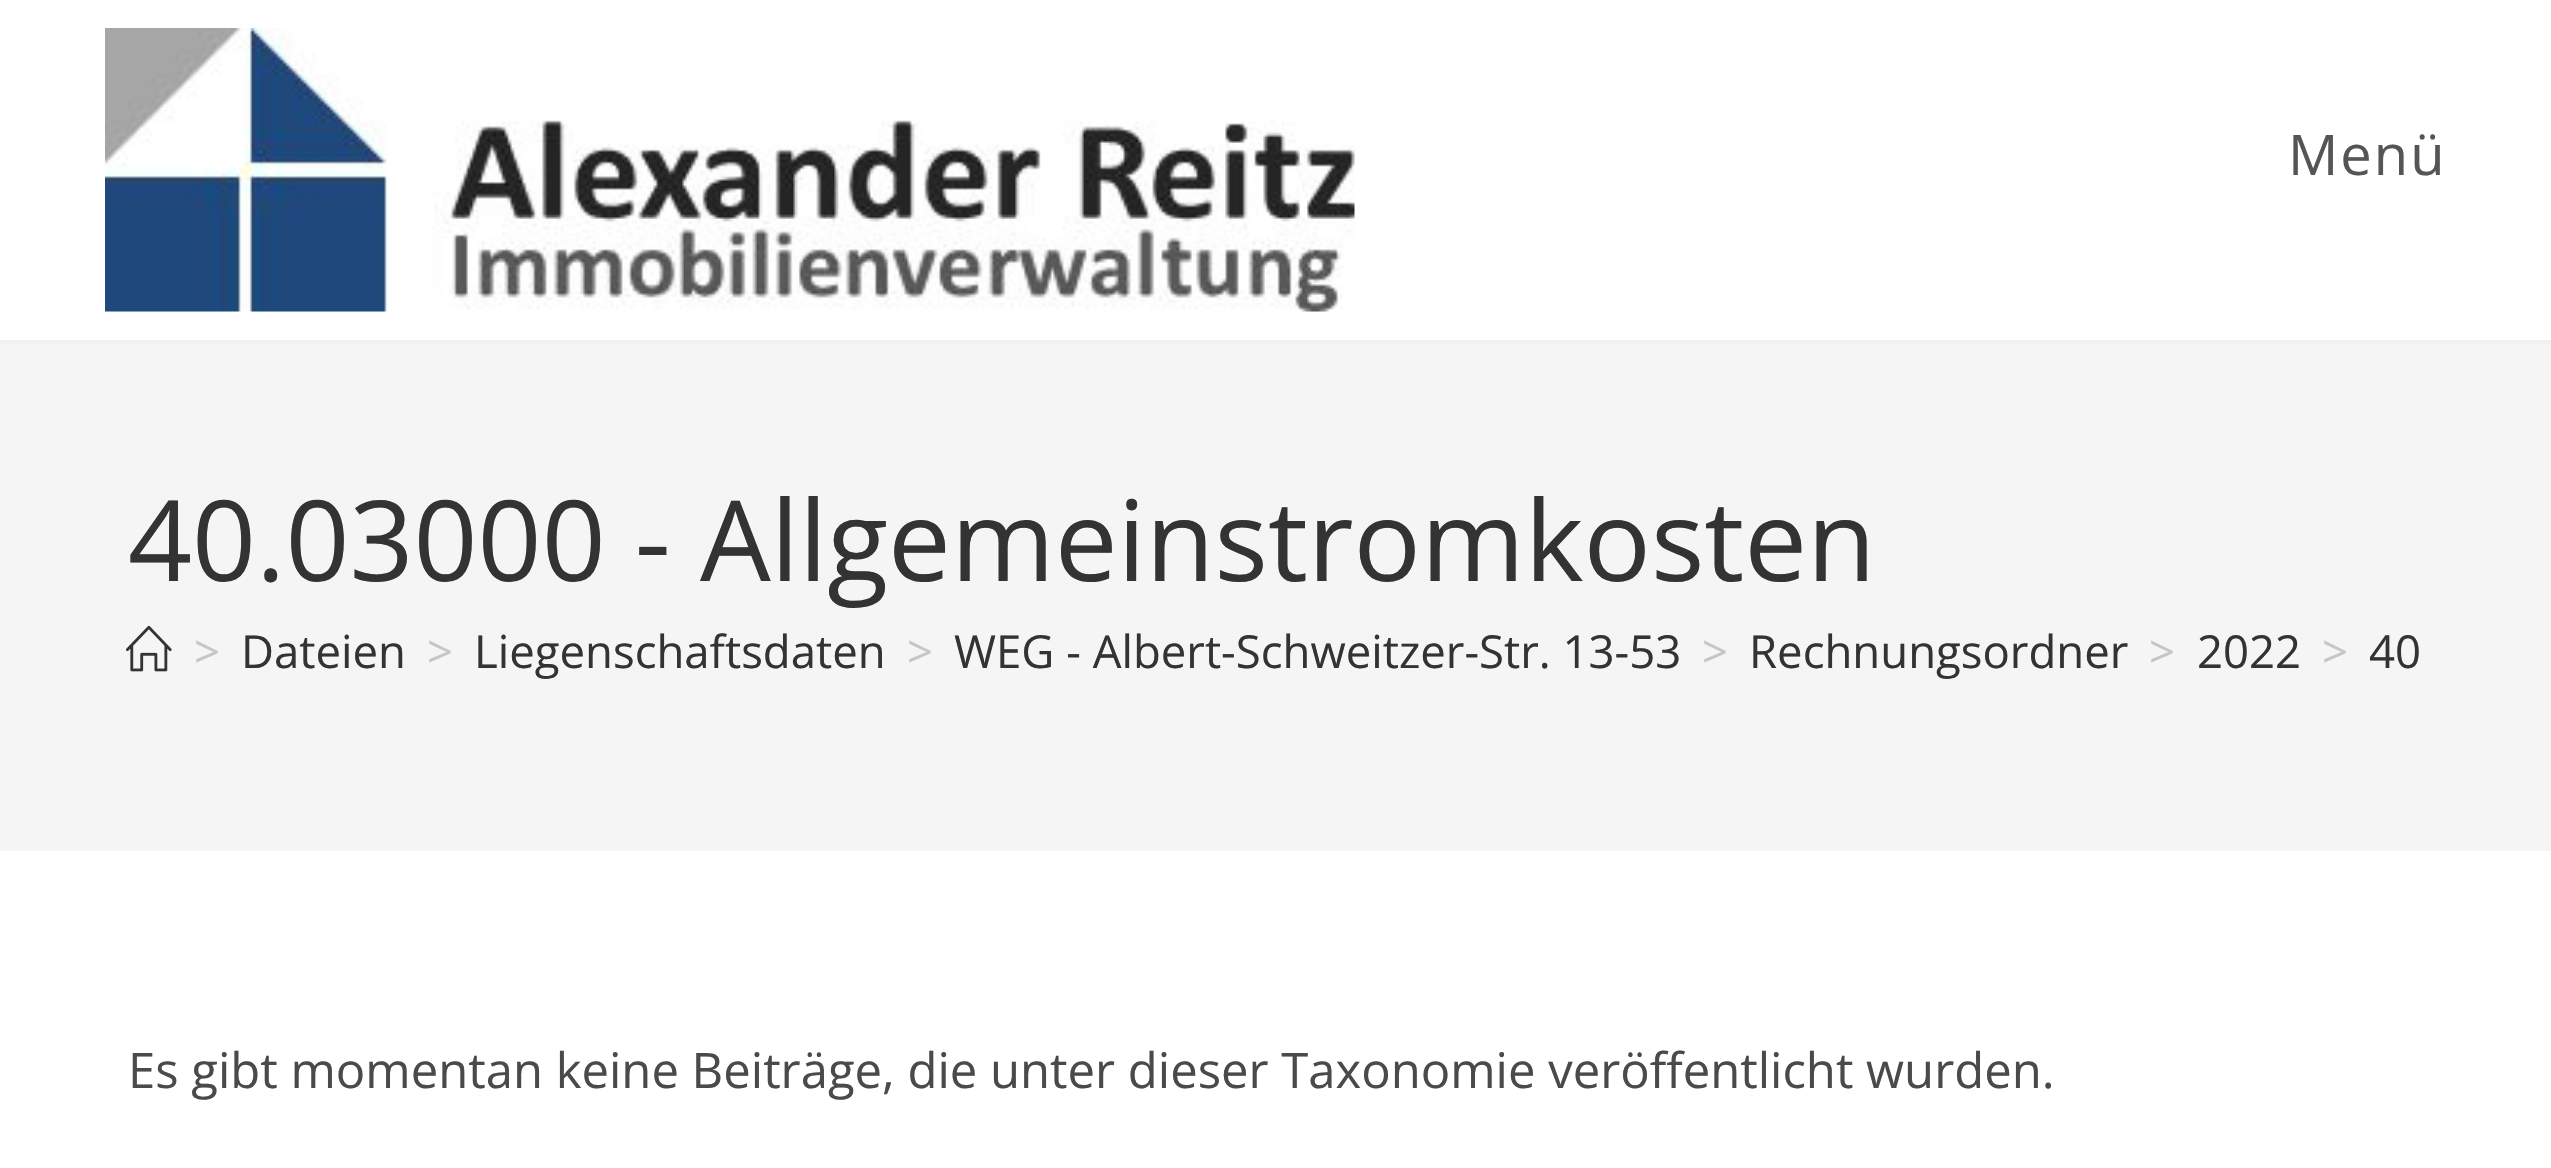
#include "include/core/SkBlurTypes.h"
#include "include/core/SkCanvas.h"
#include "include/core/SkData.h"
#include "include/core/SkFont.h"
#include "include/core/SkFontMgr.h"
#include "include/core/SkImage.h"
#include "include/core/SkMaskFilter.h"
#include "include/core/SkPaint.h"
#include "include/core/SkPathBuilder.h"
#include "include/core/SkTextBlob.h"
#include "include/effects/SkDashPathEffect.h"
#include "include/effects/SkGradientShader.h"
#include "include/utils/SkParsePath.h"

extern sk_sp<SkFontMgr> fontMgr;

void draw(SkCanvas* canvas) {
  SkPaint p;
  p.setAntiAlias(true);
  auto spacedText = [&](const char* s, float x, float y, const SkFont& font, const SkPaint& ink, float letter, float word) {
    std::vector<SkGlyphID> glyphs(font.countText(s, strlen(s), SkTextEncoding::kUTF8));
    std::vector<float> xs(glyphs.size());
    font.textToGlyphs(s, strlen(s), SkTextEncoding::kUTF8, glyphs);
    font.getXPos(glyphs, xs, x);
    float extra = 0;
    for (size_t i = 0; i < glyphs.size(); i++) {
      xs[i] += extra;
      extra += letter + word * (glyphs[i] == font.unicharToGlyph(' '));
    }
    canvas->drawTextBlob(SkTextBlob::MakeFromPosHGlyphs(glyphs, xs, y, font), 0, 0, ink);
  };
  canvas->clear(SK_ColorWHITE);
  p.setColor(SkColorSetRGB(241, 241, 241));
  canvas->drawRect(SkRect::MakeLTRB(0, 340, 2551, 344), p);
  canvas->drawImageRect(SkImages::DeferredFromEncodedData(SkData::MakeFromFileName("images/1.png")), SkRect::MakeLTRB(105, 28, 1355, 312), SkSamplingOptions());
  p.setColor(SkColorSetRGB(245, 245, 245));
  canvas->drawRect(SkRect::MakeLTRB(0, 344, 2551, 851), p);
  canvas->drawImageRect(SkImages::DeferredFromEncodedData(SkData::MakeFromFileName("images/2.png")), SkRect::MakeLTRB(126, 625, 172, 672), SkSamplingOptions());
  SkFont font1(fontMgr->matchFamilyStyle("Open Sans", SkFontStyle::Normal()), 56);
  font1.setSubpixel(true);
  p.setColor(SkColorSetRGB(85, 85, 85));
  spacedText("Menü", 2288, 175, font1, p, 2, 0);
  SkFont font2(fontMgr->matchFamilyStyle("Open Sans", SkFontStyle::Normal()), 112);
  font2.setSubpixel(true);
  p.setColor(SkColorSetRGB(51, 51, 51));
  canvas->drawString("40.03000 - Allgemeinstromkosten", 128, 581, font2, p);
  SkFont font3(fontMgr->matchFamilyStyle("Open Sans", SkFontStyle::Normal()), 45.5f);
  font3.setSubpixel(true);
  p.setColor(SkColorSetRGB(198, 198, 198));
  canvas->drawString(">", 194, 668, font3, p);
  p.setColor(SkColorSetRGB(51, 51, 51));
  canvas->drawString("Dateien", 241, 668, font3, p);
  p.setColor(SkColorSetRGB(198, 198, 198));
  canvas->drawString(">", 427, 668, font3, p);
  p.setColor(SkColorSetRGB(51, 51, 51));
  canvas->drawString("Liegenschaftsdaten", 474, 668, font3, p);
  p.setColor(SkColorSetRGB(198, 198, 198));
  canvas->drawString(">", 907, 668, font3, p);
  p.setColor(SkColorSetRGB(51, 51, 51));
  canvas->drawString("WEG - Albert-Schweitzer-Str. 13-53", 954, 668, font3, p);
  p.setColor(SkColorSetRGB(198, 198, 198));
  canvas->drawString(">", 1702, 668, font3, p);
  p.setColor(SkColorSetRGB(51, 51, 51));
  canvas->drawString("Rechnungsordner", 1749, 668, font3, p);
  p.setColor(SkColorSetRGB(198, 198, 198));
  canvas->drawString(">", 2149, 668, font3, p);
  p.setColor(SkColorSetRGB(51, 51, 51));
  canvas->drawString("2022", 2197, 668, font3, p);
  p.setColor(SkColorSetRGB(198, 198, 198));
  canvas->drawString(">", 2322, 668, font3, p);
  p.setColor(SkColorSetRGB(51, 51, 51));
  canvas->drawString("40", 2369, 668, font3, p);
  SkFont font4(fontMgr->matchFamilyStyle("Open Sans", SkFontStyle::Normal()), 49);
  font4.setSubpixel(true);
  p.setColor(SkColorSetRGB(74, 74, 74));
  canvas->drawString("Es gibt momentan keine Beiträge, die unter dieser Taxonomie veröffentlicht wurden.", 128, 1088, font4, p);
}
